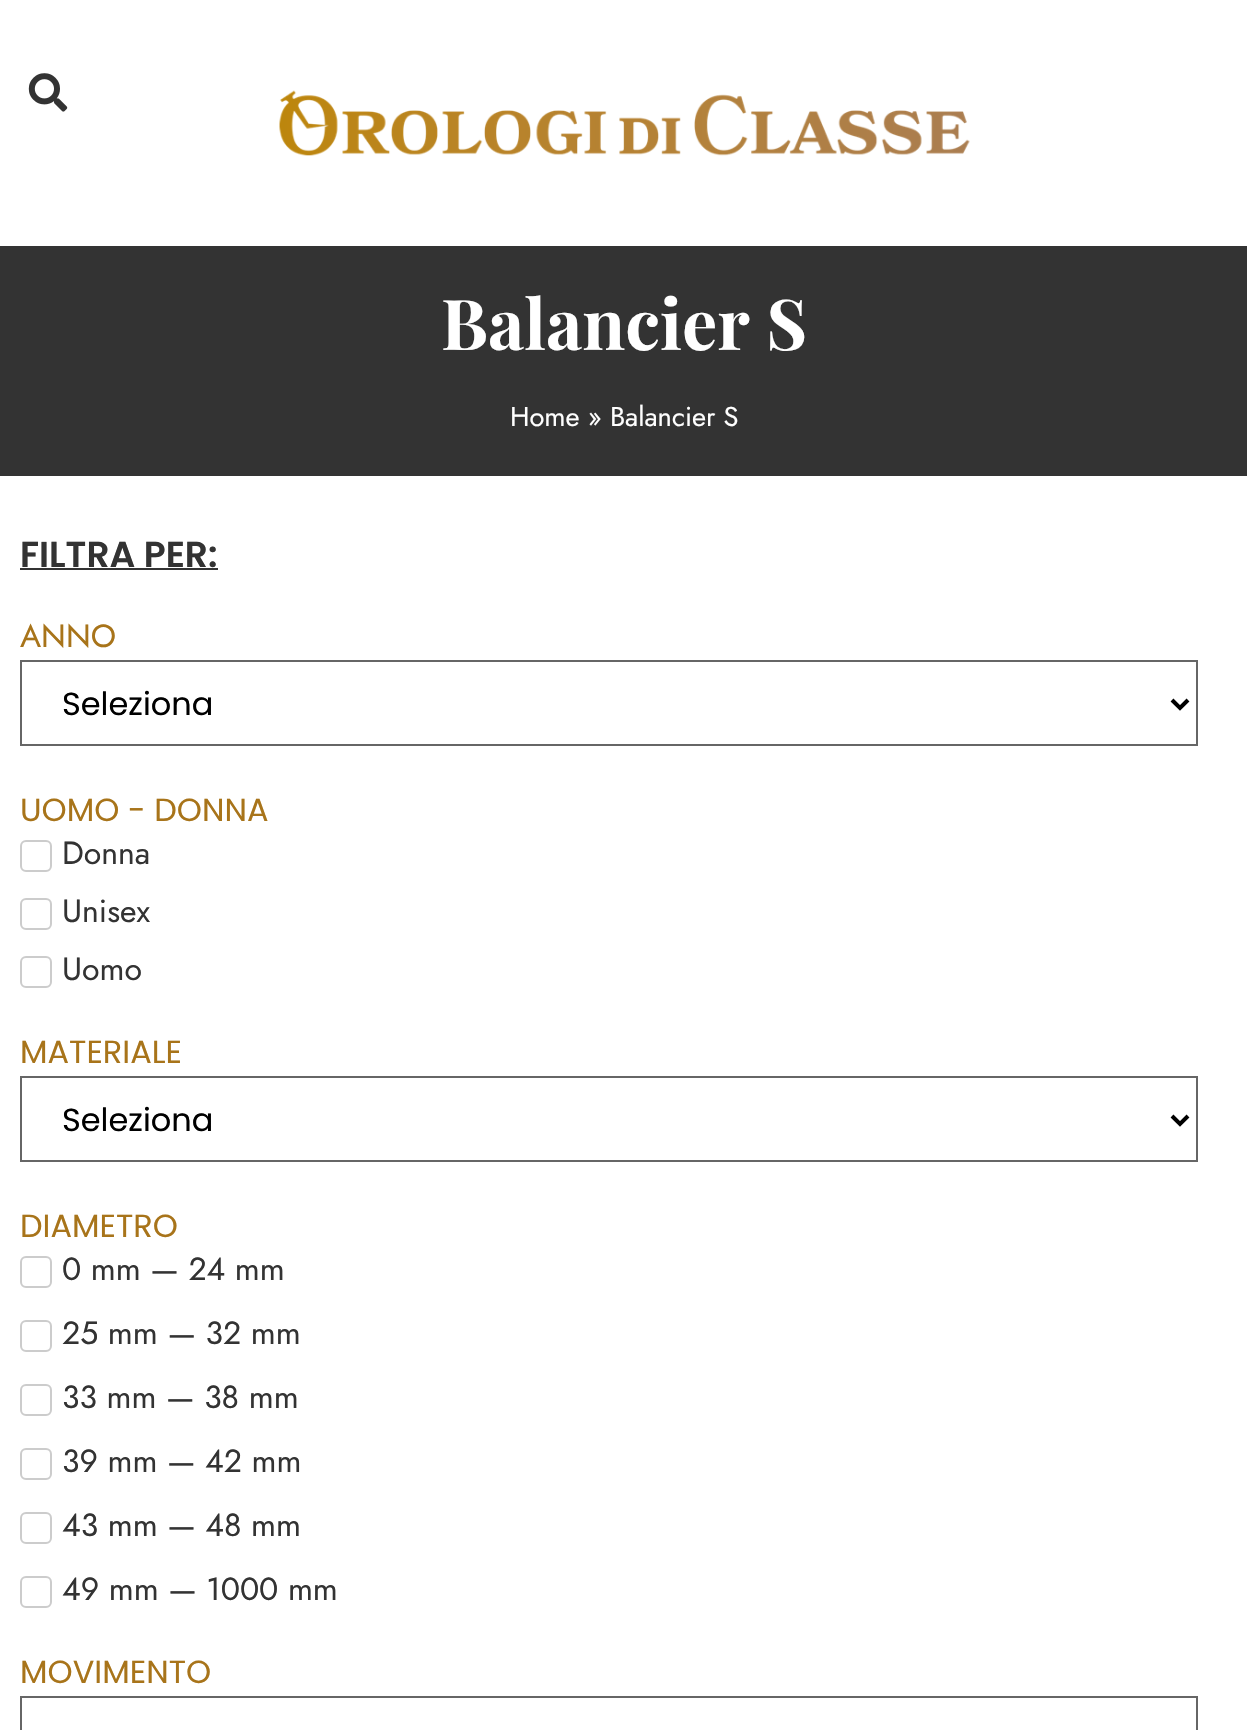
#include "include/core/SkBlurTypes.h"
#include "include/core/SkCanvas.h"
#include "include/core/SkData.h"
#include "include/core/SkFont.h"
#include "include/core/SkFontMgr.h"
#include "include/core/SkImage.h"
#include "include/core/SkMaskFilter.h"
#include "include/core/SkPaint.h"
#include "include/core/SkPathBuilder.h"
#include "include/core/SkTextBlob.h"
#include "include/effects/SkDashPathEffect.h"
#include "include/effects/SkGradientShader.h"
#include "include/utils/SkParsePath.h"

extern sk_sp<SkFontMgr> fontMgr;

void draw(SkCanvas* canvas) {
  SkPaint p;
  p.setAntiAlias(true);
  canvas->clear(SK_ColorWHITE);
  canvas->drawImageRect(SkImages::DeferredFromEncodedData(SkData::MakeFromFileName("images/1.png")), SkRect::MakeLTRB(28, 73, 68, 112), SkSamplingOptions());
  canvas->drawImageRect(SkImages::DeferredFromEncodedData(SkData::MakeFromFileName("images/2.png")), SkRect::MakeLTRB(279, 90, 970, 156), SkSamplingOptions());
  p.setColor(SkColorSetRGB(51, 51, 51));
  canvas->drawRect(SkRect::MakeLTRB(0, 246, 1247, 476), p);
  canvas->drawRect(SkRect::MakeLTRB(20, 568, 218, 570), p);
  p.setStyle(SkPaint::kStroke_Style);
  p.setStrokeWidth(2);
  p.setColor(SkColorSetRGB(102, 102, 102));
  canvas->drawRect(SkRect::MakeLTRB(21, 661, 1197, 745), p);
  p.setStrokeWidth(4);
  p.setColor(SK_ColorBLACK);
  canvas->drawPath(SkPathBuilder().moveTo(1172, 700).lineTo(1180, 708).lineTo(1188, 700).detach(), p);
  p.setStrokeWidth(2);
  p.setColor(SkColorSetRGB(204, 204, 204));
  canvas->drawRoundRect(SkRect::MakeLTRB(21, 841, 51, 871), 5, 5, p);
  canvas->drawRoundRect(SkRect::MakeLTRB(21, 899, 51, 929), 5, 5, p);
  canvas->drawRoundRect(SkRect::MakeLTRB(21, 957, 51, 987), 5, 5, p);
  p.setColor(SkColorSetRGB(102, 102, 102));
  canvas->drawRect(SkRect::MakeLTRB(21, 1077, 1197, 1161), p);
  p.setStrokeWidth(4);
  p.setColor(SK_ColorBLACK);
  canvas->drawPath(SkPathBuilder().moveTo(1172, 1116).lineTo(1180, 1124).lineTo(1188, 1116).detach(), p);
  p.setStrokeWidth(2);
  p.setColor(SkColorSetRGB(204, 204, 204));
  canvas->drawRoundRect(SkRect::MakeLTRB(21, 1257, 51, 1287), 5, 5, p);
  canvas->drawRoundRect(SkRect::MakeLTRB(21, 1321, 51, 1351), 5, 5, p);
  canvas->drawRoundRect(SkRect::MakeLTRB(21, 1385, 51, 1415), 5, 5, p);
  canvas->drawRoundRect(SkRect::MakeLTRB(21, 1449, 51, 1479), 5, 5, p);
  canvas->drawRoundRect(SkRect::MakeLTRB(21, 1513, 51, 1543), 5, 5, p);
  canvas->drawRoundRect(SkRect::MakeLTRB(21, 1577, 51, 1607), 5, 5, p);
  p.setColor(SkColorSetRGB(102, 102, 102));
  canvas->drawRect(SkRect::MakeLTRB(21, 1697, 1197, 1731), p);
  SkFont font1(fontMgr->matchFamilyStyle("Playfair Display", SkFontStyle::Bold()), 70);
  font1.setSubpixel(true);
  p.setStyle(SkPaint::kFill_Style);
  p.setColor(SK_ColorWHITE);
  canvas->drawString("Balancier S", 441, 350, font1, p);
  SkFont font2(fontMgr->matchFamilyStyle("Jost", SkFontStyle::Normal()), 27.25f);
  font2.setSubpixel(true);
  canvas->drawString("Home » Balancier S", 510, 426, font2, p);
  SkFont font3(fontMgr->matchFamilyStyle("Poppins", SkFontStyle(600, SkFontStyle::kNormal_Width, SkFontStyle::kUpright_Slant)), 36);
  font3.setSubpixel(true);
  p.setColor(SkColorSetRGB(51, 51, 51));
  canvas->drawString("FILTRA PER:", 20, 567, font3, p);
  SkFont font4(fontMgr->matchFamilyStyle("Jost", SkFontStyle::Normal()), 32);
  font4.setSubpixel(true);
  p.setColor(SkColorSetRGB(168, 116, 26));
  canvas->drawString("ANNO", 20, 647, font4, p);
  SkFont font5(fontMgr->matchFamilyStyle("Poppins", SkFontStyle::Normal()), 32);
  font5.setSubpixel(true);
  p.setColor(SK_ColorBLACK);
  canvas->drawString("Seleziona", 62, 715, font5, p);
  p.setColor(SkColorSetRGB(168, 116, 26));
  canvas->drawString("UOMO - DONNA", 20, 821, font5, p);
  p.setColor(SkColorSetRGB(51, 51, 51));
  canvas->drawString("Donna", 62, 864, font4, p);
  canvas->drawString("Unisex", 62, 922, font4, p);
  canvas->drawString("Uomo", 62, 980, font4, p);
  p.setColor(SkColorSetRGB(168, 116, 26));
  canvas->drawString("MATERIALE", 20, 1063, font5, p);
  p.setColor(SK_ColorBLACK);
  canvas->drawString("Seleziona", 62, 1131, font5, p);
  p.setColor(SkColorSetRGB(168, 116, 26));
  canvas->drawString("DIAMETRO", 20, 1237, font5, p);
  p.setColor(SkColorSetRGB(51, 51, 51));
  canvas->drawString("0 mm — 24 mm", 62, 1280, font4, p);
  canvas->drawString("25 mm — 32 mm", 62, 1344, font4, p);
  canvas->drawString("33 mm — 38 mm", 62, 1408, font4, p);
  canvas->drawString("39 mm — 42 mm", 62, 1472, font4, p);
  canvas->drawString("43 mm — 48 mm", 62, 1536, font4, p);
  canvas->drawString("49 mm — 1000 mm", 62, 1600, font4, p);
  p.setColor(SkColorSetRGB(168, 116, 26));
  canvas->drawString("MOVIMENTO", 20, 1683, font5, p);
}
